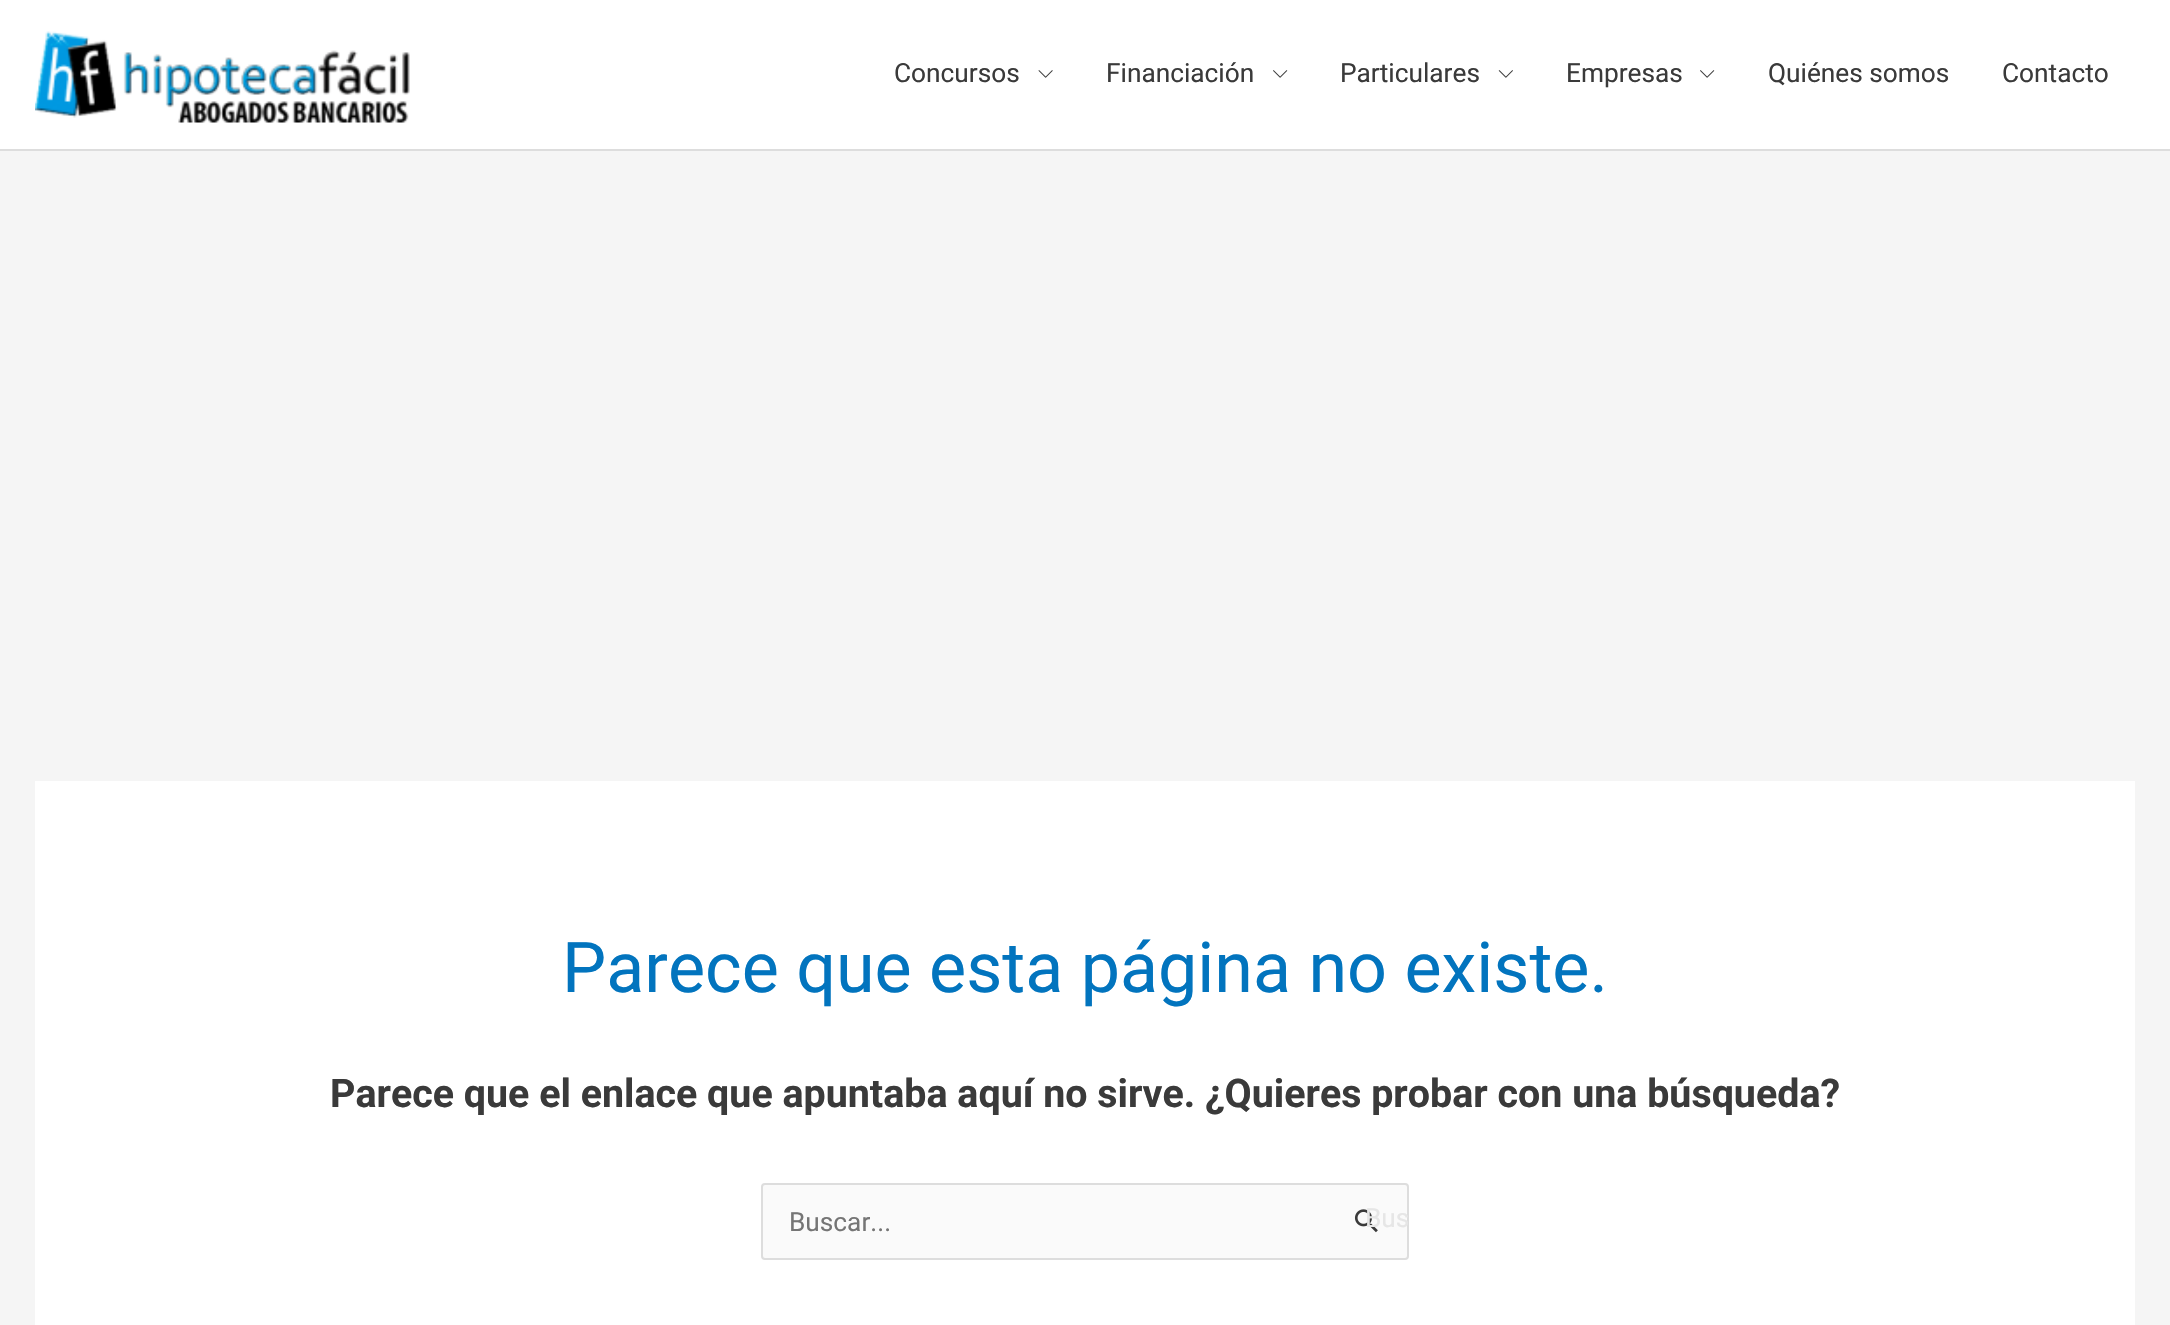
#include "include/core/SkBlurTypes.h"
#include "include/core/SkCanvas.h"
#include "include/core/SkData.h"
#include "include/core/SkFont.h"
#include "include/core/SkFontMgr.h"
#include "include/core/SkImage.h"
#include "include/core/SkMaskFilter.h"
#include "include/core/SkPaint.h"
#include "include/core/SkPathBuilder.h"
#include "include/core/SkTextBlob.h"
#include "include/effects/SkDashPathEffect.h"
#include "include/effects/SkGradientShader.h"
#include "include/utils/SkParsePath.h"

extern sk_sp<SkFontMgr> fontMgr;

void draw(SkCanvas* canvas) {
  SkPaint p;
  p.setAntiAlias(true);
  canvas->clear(SkColorSetRGB(245, 245, 245));
  p.setColor(SK_ColorWHITE);
  canvas->drawRect(SkRect::MakeLTRB(0, 0, 2170, 149), p);
  p.setColor(SkColorSetRGB(221, 221, 221));
  canvas->drawRect(SkRect::MakeLTRB(0, 149, 2170, 151), p);
  canvas->drawImageRect(SkImages::DeferredFromEncodedData(SkData::MakeFromFileName("images/1.png")), SkRect::MakeLTRB(35, 31, 410, 123), SkSamplingOptions());
  canvas->drawImageRect(SkImages::DeferredFromEncodedData(SkData::MakeFromFileName("images/2.png")), SkRect::MakeLTRB(1038, 70, 1053, 78), SkSamplingOptions());
  canvas->drawImageRect(SkImages::DeferredFromEncodedData(SkData::MakeFromFileName("images/3.png")), SkRect::MakeLTRB(1273, 70, 1288, 78), SkSamplingOptions());
  canvas->drawImageRect(SkImages::DeferredFromEncodedData(SkData::MakeFromFileName("images/4.png")), SkRect::MakeLTRB(1498, 70, 1513, 78), SkSamplingOptions());
  canvas->drawImageRect(SkImages::DeferredFromEncodedData(SkData::MakeFromFileName("images/3.png")), SkRect::MakeLTRB(1700, 70, 1715, 78), SkSamplingOptions());
  p.setColor(SK_ColorWHITE);
  canvas->drawRect(SkRect::MakeLTRB(35, 781, 2135, 1325), p);
  p.setColor(SkColorSetRGB(250, 250, 250));
  canvas->drawRoundRect(SkRect::MakeLTRB(762, 1184, 1408, 1259), 3, 3, p);
  p.setStyle(SkPaint::kStroke_Style);
  p.setStrokeWidth(2);
  p.setColor(SkColorSetRGB(221, 221, 221));
  canvas->drawRoundRect(SkRect::MakeLTRB(762, 1184, 1408, 1259), 3, 3, p);
  canvas->drawImageRect(SkImages::DeferredFromEncodedData(SkData::MakeFromFileName("images/5.png")), SkRect::MakeLTRB(1354, 1209, 1378, 1233), SkSamplingOptions());
  SkFont font1(fontMgr->matchFamilyStyle("Roboto", SkFontStyle::Normal()), 26.25f);
  font1.setSubpixel(true);
  p.setStyle(SkPaint::kFill_Style);
  p.setColor(SkColorSetRGB(58, 58, 58));
  canvas->drawString("Concursos", 894, 82, font1, p);
  canvas->drawString("Financiación", 1106, 82, font1, p);
  canvas->drawString("Particulares", 1340, 82, font1, p);
  canvas->drawString("Empresas", 1566, 82, font1, p);
  canvas->drawString("Quiénes somos", 1768, 82, font1, p);
  canvas->drawString("Contacto", 2002, 82, font1, p);
  SkFont font2(fontMgr->matchFamilyStyle("Roboto", SkFontStyle::Normal()), 70);
  font2.setSubpixel(true);
  p.setColor(SkColorSetRGB(2, 116, 190));
  canvas->drawString("Parece que esta página no existe.", 562, 992, font2, p);
  SkFont font3(fontMgr->matchFamilyStyle("Roboto", SkFontStyle::Bold()), 39.4f);
  font3.setSubpixel(true);
  p.setColor(SkColorSetRGB(58, 58, 58));
  canvas->drawString("Parece que el enlace que apuntaba aquí no sirve. ¿Quieres probar con una búsqueda?", 330, 1107, font3, p);
  p.setColor(SkColorSetRGB(117, 117, 117));
  canvas->drawString("Buscar...", 789, 1231, font1, p);
  p.setColor(SkColorSetRGB(230, 230, 230));
  canvas->drawString("Bus", 1365, 1227, font1, p);
}
